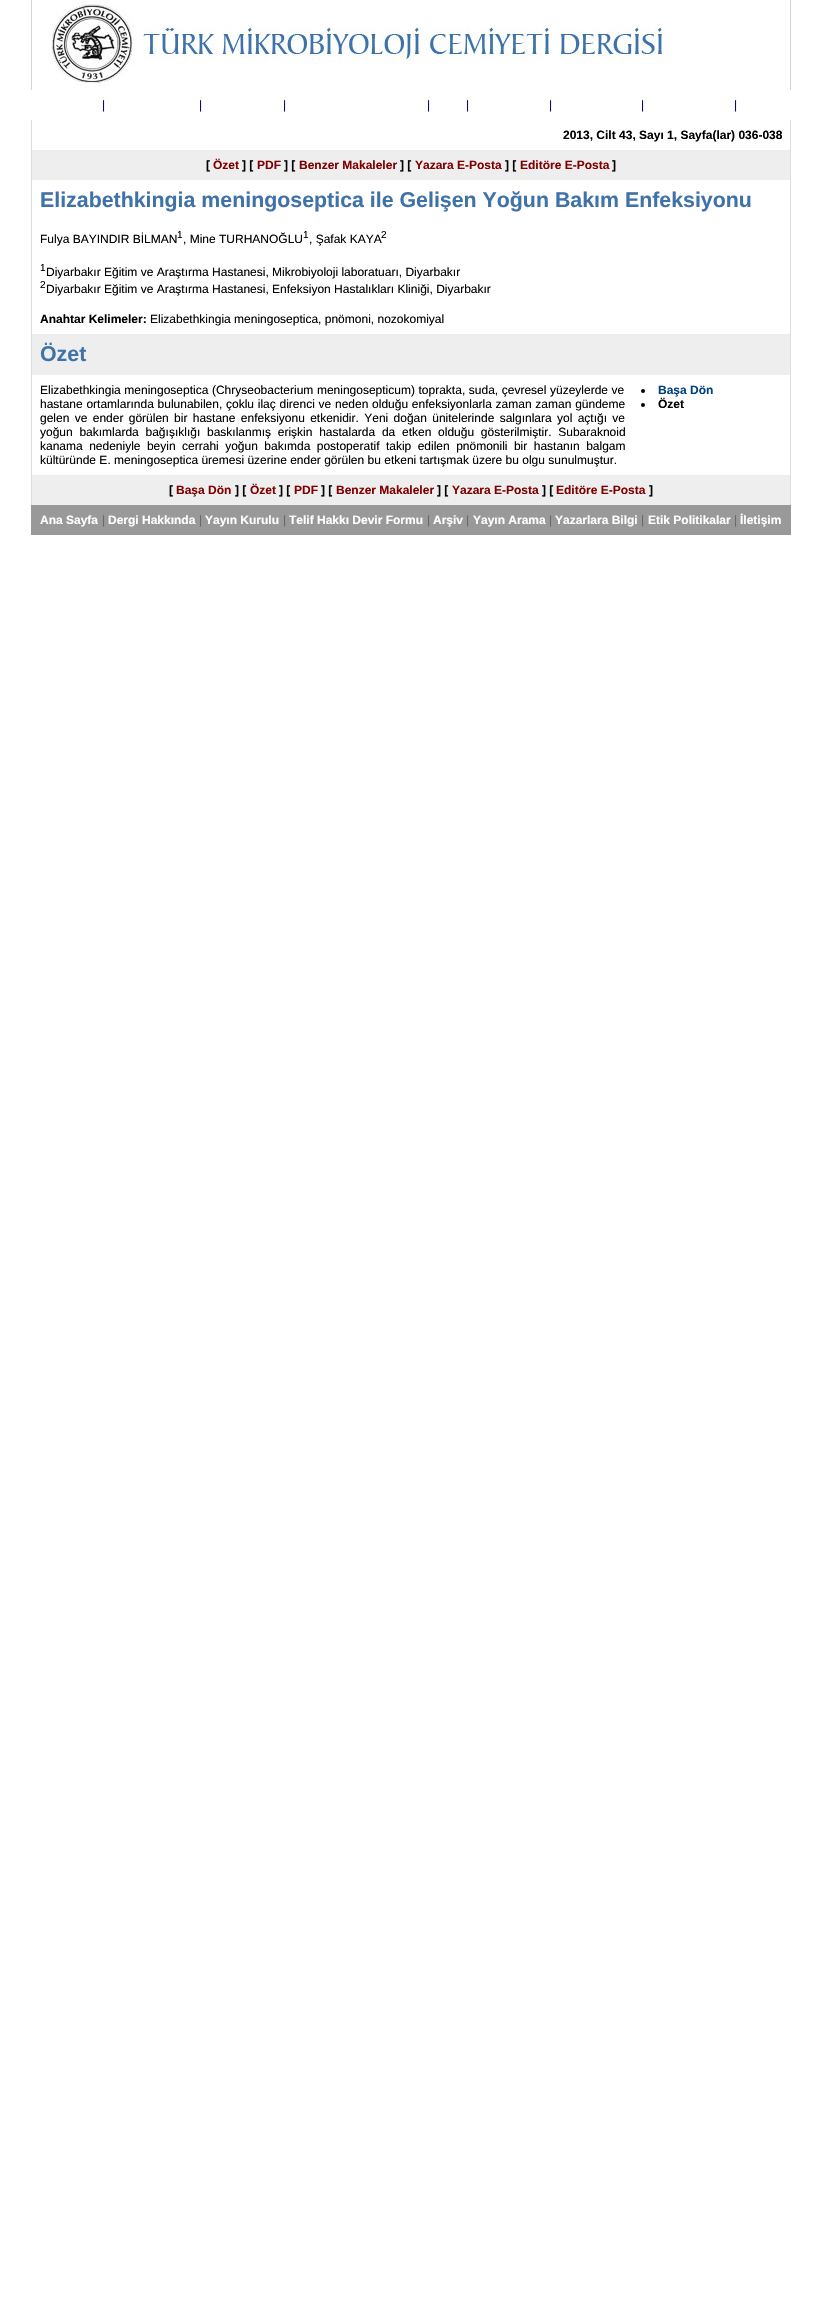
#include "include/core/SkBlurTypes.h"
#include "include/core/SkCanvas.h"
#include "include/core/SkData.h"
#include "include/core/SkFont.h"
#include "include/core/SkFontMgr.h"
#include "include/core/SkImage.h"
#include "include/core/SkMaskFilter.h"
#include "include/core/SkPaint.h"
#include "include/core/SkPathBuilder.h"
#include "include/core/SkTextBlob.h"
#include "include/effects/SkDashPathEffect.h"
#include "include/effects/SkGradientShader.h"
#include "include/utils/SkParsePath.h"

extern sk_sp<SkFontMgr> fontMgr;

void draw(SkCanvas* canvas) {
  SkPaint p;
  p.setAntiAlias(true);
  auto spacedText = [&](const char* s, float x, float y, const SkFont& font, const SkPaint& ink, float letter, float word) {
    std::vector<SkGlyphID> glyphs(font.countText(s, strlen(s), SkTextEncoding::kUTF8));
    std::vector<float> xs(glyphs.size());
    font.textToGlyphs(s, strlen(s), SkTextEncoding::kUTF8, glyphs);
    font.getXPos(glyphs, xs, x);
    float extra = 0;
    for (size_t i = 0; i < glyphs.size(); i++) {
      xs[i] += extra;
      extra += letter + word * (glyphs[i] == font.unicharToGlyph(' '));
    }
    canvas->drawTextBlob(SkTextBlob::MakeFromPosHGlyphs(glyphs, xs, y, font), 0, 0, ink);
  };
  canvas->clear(SK_ColorWHITE);
  canvas->drawImageRect(SkImages::DeferredFromEncodedData(SkData::MakeFromFileName("images/1.png")), SkRect::MakeLTRB(31, 0, 791, 90), SkSamplingOptions());
  p.setColor(SkColorSetRGB(221, 221, 221));
  canvas->drawRect(SkRect::MakeLTRB(790, 120, 791, 505), p);
  canvas->drawRect(SkRect::MakeLTRB(31, 120, 32, 505), p);
  p.setColor(SkColorSetRGB(238, 238, 238));
  canvas->drawRect(SkRect::MakeLTRB(32, 150, 790, 180), p);
  canvas->drawRect(SkRect::MakeLTRB(32, 334, 790, 375), p);
  p.setColor(SK_ColorBLACK);
  canvas->drawCircle(643, 391, 2, p);
  canvas->drawCircle(643, 405, 2, p);
  p.setColor(SkColorSetRGB(238, 238, 238));
  canvas->drawRect(SkRect::MakeLTRB(32, 475, 790, 505), p);
  p.setColor(SkColorSetRGB(153, 153, 153));
  canvas->drawRect(SkRect::MakeLTRB(31, 505, 791, 535), p);
  SkFont font1(fontMgr->matchFamilyStyle("Liberation Sans", SkFontStyle::Normal()), 12);
  font1.setSubpixel(true);
  p.setColor(SkColorSetRGB(0, 0, 128));
  canvas->drawString("|", 102, 109, font1, p);
  canvas->drawString("|", 199, 109, font1, p);
  canvas->drawString("|", 283, 109, font1, p);
  canvas->drawString("|", 427, 109, font1, p);
  canvas->drawString("|", 466, 109, font1, p);
  canvas->drawString("|", 549, 109, font1, p);
  canvas->drawString("|", 641, 109, font1, p);
  canvas->drawString("|", 734, 109, font1, p);
  SkFont font2(fontMgr->matchFamilyStyle("Liberation Sans", SkFontStyle::Bold()), 12);
  font2.setSubpixel(true);
  p.setColor(SK_ColorBLACK);
  canvas->drawString("2013, Cilt 43, Sayı 1, Sayfa(lar) 036-038", 563, 139, font2, p);
  canvas->drawString("[", 206, 169, font2, p);
  p.setColor(SkColorSetRGB(128, 0, 0));
  canvas->drawString("Özet", 213, 169, font2, p);
  p.setColor(SK_ColorBLACK);
  canvas->drawString("] [", 242, 169, font2, p);
  p.setColor(SkColorSetRGB(128, 0, 0));
  canvas->drawString("PDF", 257, 169, font2, p);
  p.setColor(SK_ColorBLACK);
  canvas->drawString("] [", 284, 169, font2, p);
  p.setColor(SkColorSetRGB(128, 0, 0));
  canvas->drawString("Benzer Makaleler", 299, 169, font2, p);
  p.setColor(SK_ColorBLACK);
  canvas->drawString("] [", 400, 169, font2, p);
  p.setColor(SkColorSetRGB(128, 0, 0));
  canvas->drawString("Yazara E-Posta", 415, 169, font2, p);
  p.setColor(SK_ColorBLACK);
  canvas->drawString("] [", 505, 169, font2, p);
  p.setColor(SkColorSetRGB(128, 0, 0));
  canvas->drawString("Editöre E-Posta", 520, 169, font2, p);
  p.setColor(SK_ColorBLACK);
  canvas->drawString("]", 612, 169, font2, p);
  SkFont font3(fontMgr->matchFamilyStyle("Liberation Sans", SkFontStyle::Bold()), 21.35f);
  font3.setSubpixel(true);
  p.setColor(SkColorSetRGB(63, 114, 169));
  canvas->drawString("Elizabethkingia meningoseptica ile Gelişen Yoğun Bakım Enfeksiyonu", 40, 207, font3, p);
  p.setColor(SK_ColorBLACK);
  canvas->drawString("Fulya BAYINDIR BİLMAN", 40, 243, font1, p);
  SkFont font4(fontMgr->matchFamilyStyle("Liberation Sans", SkFontStyle::Normal()), 10);
  font4.setSubpixel(true);
  canvas->drawString("1", 177, 238, font4, p);
  canvas->drawString(", Mine TURHANOĞLU", 183, 243, font1, p);
  canvas->drawString("1", 303, 238, font4, p);
  canvas->drawString(", Şafak KAYA", 309, 243, font1, p);
  canvas->drawString("2", 381, 238, font4, p);
  canvas->drawString("1", 40, 271, font4, p);
  canvas->drawString("Diyarbakır Eğitim ve Araştırma Hastanesi, Mikrobiyoloji laboratuarı, Diyarbakır", 46, 276, font1, p);
  canvas->drawString("2", 40, 288, font4, p);
  canvas->drawString("Diyarbakır Eğitim ve Araştırma Hastanesi, Enfeksiyon Hastalıkları Kliniği, Diyarbakır", 46, 293, font1, p);
  canvas->drawString("Anahtar Kelimeler:", 40, 323, font2, p);
  canvas->drawString("Elizabethkingia meningoseptica, pnömoni, nozokomiyal", 150, 323, font1, p);
  p.setColor(SkColorSetRGB(63, 114, 169));
  canvas->drawString("Özet", 40, 361, font3, p);
  p.setColor(SK_ColorBLACK);
  spacedText("Elizabethkingia meningoseptica (Chryseobacterium meningosepticum) toprakta, suda, çevresel yüzeylerde ve", 40, 394, font1, p, 0, 0.25f);
  spacedText("hastane ortamlarında bulunabilen, çoklu ilaç direnci ve neden olduğu enfeksiyonlarla zaman zaman gündeme", 40, 408, font1, p, 0, 0.4f);
  spacedText("gelen ve ender görülen bir hastane enfeksiyonu etkenidir. Yeni doğan ünitelerinde salgınlara yol açtığı ve", 40, 422, font1, p, 0, 2);
  spacedText("yoğun bakımlarda bağışıklığı baskılanmış erişkin hastalarda da etken olduğu gösterilmiştir. Subaraknoid", 40, 436, font1, p, 0, 3.4f);
  spacedText("kanama nedeniyle beyin cerrahi yoğun bakımda postoperatif takip edilen pnömonili bir hastanın balgam", 40, 450, font1, p, 0, 3.1f);
  canvas->drawString("kültüründe E. meningoseptica üremesi üzerine ender görülen bu etkeni tartışmak üzere bu olgu sunulmuştur.", 40, 464, font1, p);
  p.setColor(SkColorSetRGB(0, 64, 128));
  canvas->drawString("Başa Dön", 658, 394, font2, p);
  p.setColor(SK_ColorBLACK);
  canvas->drawString("Özet", 658, 408, font2, p);
  canvas->drawString("[", 169, 494, font2, p);
  p.setColor(SkColorSetRGB(128, 0, 0));
  canvas->drawString("Başa Dön", 176, 494, font2, p);
  p.setColor(SK_ColorBLACK);
  canvas->drawString("] [", 235, 494, font2, p);
  p.setColor(SkColorSetRGB(128, 0, 0));
  canvas->drawString("Özet", 250, 494, font2, p);
  p.setColor(SK_ColorBLACK);
  canvas->drawString("] [", 279, 494, font2, p);
  p.setColor(SkColorSetRGB(128, 0, 0));
  canvas->drawString("PDF", 294, 494, font2, p);
  p.setColor(SK_ColorBLACK);
  canvas->drawString("] [", 321, 494, font2, p);
  p.setColor(SkColorSetRGB(128, 0, 0));
  canvas->drawString("Benzer Makaleler", 336, 494, font2, p);
  p.setColor(SK_ColorBLACK);
  canvas->drawString("] [", 437, 494, font2, p);
  p.setColor(SkColorSetRGB(128, 0, 0));
  canvas->drawString("Yazara E-Posta", 452, 494, font2, p);
  p.setColor(SK_ColorBLACK);
  canvas->drawString("] [", 542, 494, font2, p);
  p.setColor(SkColorSetRGB(128, 0, 0));
  canvas->drawString("Editöre E-Posta", 556, 494, font2, p);
  p.setColor(SK_ColorBLACK);
  canvas->drawString("]", 649, 494, font2, p);
  p.setColor(SK_ColorWHITE);
  canvas->drawString("Ana Sayfa", 40, 524, font2, p);
  p.setColor(SkColorSetRGB(102, 102, 102));
  canvas->drawString("|", 102, 524, font1, p);
  p.setColor(SK_ColorWHITE);
  canvas->drawString("Dergi Hakkında", 108, 524, font2, p);
  p.setColor(SkColorSetRGB(102, 102, 102));
  canvas->drawString("|", 199, 524, font1, p);
  p.setColor(SK_ColorWHITE);
  canvas->drawString("Yayın Kurulu", 205, 524, font2, p);
  p.setColor(SkColorSetRGB(102, 102, 102));
  canvas->drawString("|", 283, 524, font1, p);
  p.setColor(SK_ColorWHITE);
  canvas->drawString("Telif Hakkı Devir Formu", 289, 524, font2, p);
  p.setColor(SkColorSetRGB(102, 102, 102));
  canvas->drawString("|", 427, 524, font1, p);
  p.setColor(SK_ColorWHITE);
  canvas->drawString("Arşiv", 433, 524, font2, p);
  p.setColor(SkColorSetRGB(102, 102, 102));
  canvas->drawString("|", 466, 524, font1, p);
  p.setColor(SK_ColorWHITE);
  canvas->drawString("Yayın Arama", 473, 524, font2, p);
  p.setColor(SkColorSetRGB(102, 102, 102));
  canvas->drawString("|", 549, 524, font1, p);
  p.setColor(SK_ColorWHITE);
  canvas->drawString("Yazarlara Bilgi", 555, 524, font2, p);
  p.setColor(SkColorSetRGB(102, 102, 102));
  canvas->drawString("|", 641, 524, font1, p);
  p.setColor(SK_ColorWHITE);
  canvas->drawString("Etik Politikalar", 648, 524, font2, p);
  p.setColor(SkColorSetRGB(102, 102, 102));
  canvas->drawString("|", 734, 524, font1, p);
  p.setColor(SK_ColorWHITE);
  canvas->drawString("İletişim", 740, 524, font2, p);
}
